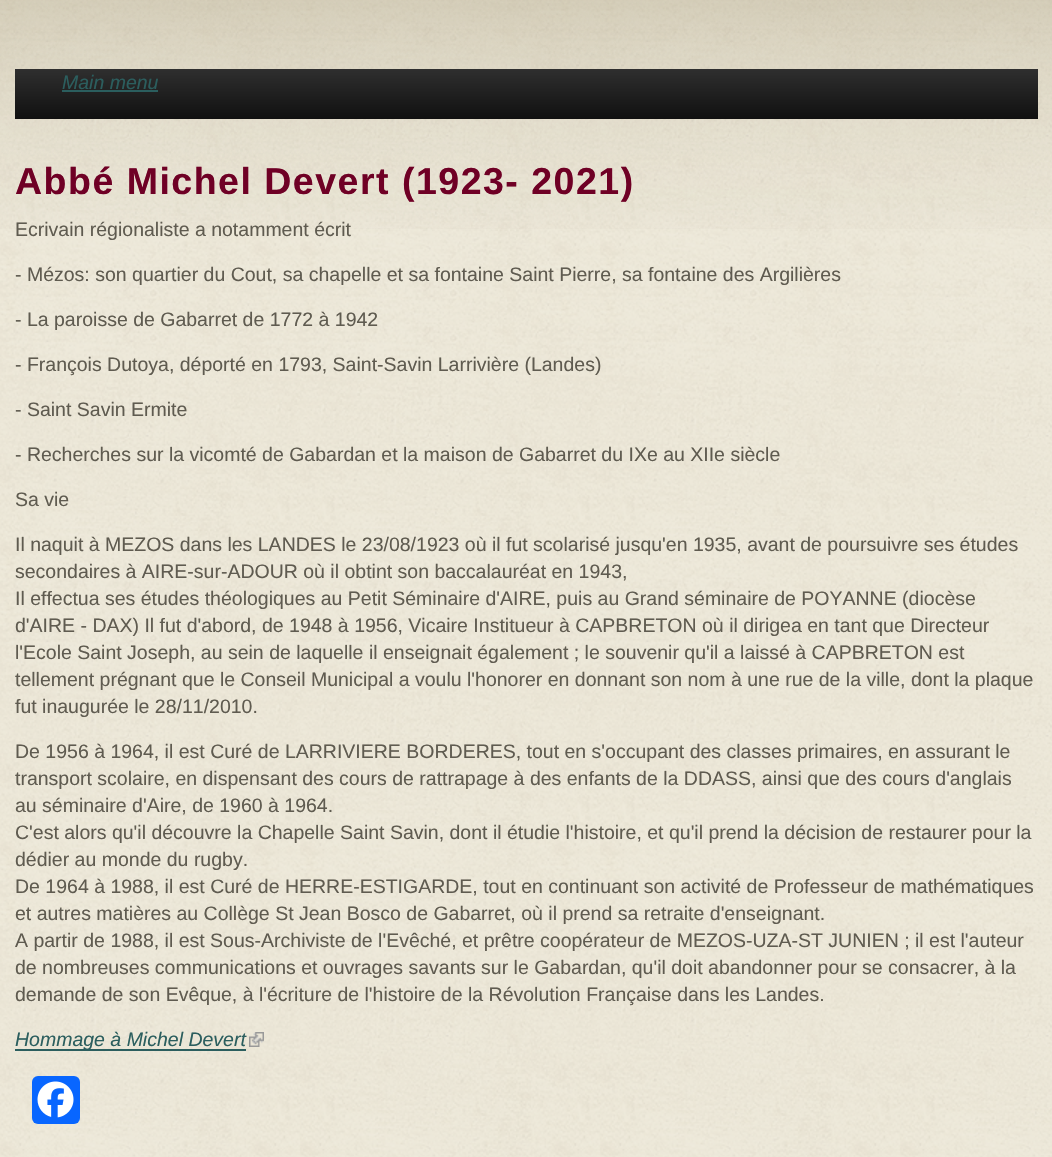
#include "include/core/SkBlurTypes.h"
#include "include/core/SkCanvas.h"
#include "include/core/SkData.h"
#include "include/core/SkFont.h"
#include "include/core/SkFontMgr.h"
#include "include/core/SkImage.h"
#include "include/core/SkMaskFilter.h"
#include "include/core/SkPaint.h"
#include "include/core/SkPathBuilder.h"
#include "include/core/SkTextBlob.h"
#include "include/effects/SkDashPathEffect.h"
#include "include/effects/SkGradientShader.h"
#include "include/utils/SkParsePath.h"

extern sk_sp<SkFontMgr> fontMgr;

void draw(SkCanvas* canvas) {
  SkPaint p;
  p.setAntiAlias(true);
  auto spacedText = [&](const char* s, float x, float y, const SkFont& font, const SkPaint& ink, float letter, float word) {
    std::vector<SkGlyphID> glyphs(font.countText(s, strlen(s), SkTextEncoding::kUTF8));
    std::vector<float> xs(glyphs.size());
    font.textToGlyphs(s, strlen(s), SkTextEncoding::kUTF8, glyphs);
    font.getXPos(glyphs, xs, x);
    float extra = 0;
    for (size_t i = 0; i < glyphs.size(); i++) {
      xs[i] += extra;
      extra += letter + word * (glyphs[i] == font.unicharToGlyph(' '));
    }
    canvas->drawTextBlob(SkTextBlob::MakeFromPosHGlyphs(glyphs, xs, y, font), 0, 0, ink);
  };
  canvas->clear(SK_ColorWHITE);
  canvas->drawImageRect(SkImages::DeferredFromEncodedData(SkData::MakeFromFileName("images/1.png")), SkRect::MakeLTRB(0, 0, 1052, 1157), SkSamplingOptions());
  canvas->drawImageRect(SkImages::DeferredFromEncodedData(SkData::MakeFromFileName("images/2.png")), SkRect::MakeLTRB(0, 0, 1052, 229), SkSamplingOptions());
  {
    const SkColor colors[] = {SkColorSetRGB(47, 47, 47), SkColorSetRGB(16, 16, 16)};
    const float stops[] = {0, 1};
    const SkPoint ends[] = {{527, 69}, {527, 119}};
    p.setShader(SkGradientShader::MakeLinear(ends, colors, stops, 2, SkTileMode::kClamp));
    p.setAlpha(255);
  }
  canvas->drawRect(SkRect::MakeLTRB(15, 69, 1038, 119), p);
  p.setShader(nullptr);
  p.setColor(SkColorSetRGB(43, 94, 94));
  canvas->drawRect(SkRect::MakeLTRB(62, 90, 158, 92), p);
  canvas->drawRect(SkRect::MakeLTRB(15, 1049, 246, 1051), p);
  canvas->drawImageRect(SkImages::DeferredFromEncodedData(SkData::MakeFromFileName("images/3.png")), SkRect::MakeLTRB(249, 1032, 264, 1047), SkSamplingOptions());
  p.setColor(SkColorSetRGB(8, 102, 255));
  canvas->drawRoundRect(SkRect::MakeLTRB(32, 1076, 80, 1124), 6, 6, p);
  canvas->drawImageRect(SkImages::DeferredFromEncodedData(SkData::MakeFromFileName("images/4.png")), SkRect::MakeLTRB(37, 1081, 74, 1118), SkSamplingOptions());
  SkFont font1(fontMgr->matchFamilyStyle("Liberation Sans", SkFontStyle::Italic()), 19.5f);
  font1.setSubpixel(true);
  p.setColor(SkColorSetRGB(43, 94, 94));
  canvas->drawString("Main menu", 62, 89, font1, p);
  SkFont font2(fontMgr->matchFamilyStyle("Liberation Sans", SkFontStyle::Bold()), 37.5f);
  font2.setSubpixel(true);
  p.setColor(SkColorSetRGB(111, 0, 37));
  spacedText("Abbé Michel Devert (1923- 2021)", 15, 194, font2, p, 1.5f, 0);
  SkFont font3(fontMgr->matchFamilyStyle("Liberation Sans", SkFontStyle::Normal()), 19.5f);
  font3.setSubpixel(true);
  p.setColor(SkColorSetRGB(95, 91, 80));
  canvas->drawString("Ecrivain régionaliste a notamment écrit", 15, 236, font3, p);
  canvas->drawString("- Mézos: son quartier du Cout, sa chapelle et sa fontaine Saint Pierre, sa fontaine des Argilières", 15, 281, font3, p);
  canvas->drawString("- La paroisse de Gabarret de 1772 à 1942", 15, 326, font3, p);
  canvas->drawString("- François Dutoya, déporté en 1793, Saint-Savin Larrivière (Landes)", 15, 371, font3, p);
  canvas->drawString("- Saint Savin Ermite", 15, 416, font3, p);
  canvas->drawString("- Recherches sur la vicomté de Gabardan et la maison de Gabarret du IXe au XIIe siècle", 15, 461, font3, p);
  canvas->drawString("Sa vie", 15, 506, font3, p);
  canvas->drawString("Il naquit à MEZOS dans les LANDES le 23/08/1923 où il fut scolarisé jusqu'en 1935, avant de poursuivre ses études", 15, 551, font3, p);
  canvas->drawString("secondaires à AIRE-sur-ADOUR où il obtint son baccalauréat en 1943,", 15, 578, font3, p);
  canvas->drawString("Il effectua ses études théologiques au Petit Séminaire d'AIRE, puis au Grand séminaire de POYANNE (diocèse", 15, 605, font3, p);
  canvas->drawString("d'AIRE - DAX) Il fut d'abord, de 1948 à 1956, Vicaire Institueur à CAPBRETON où il dirigea en tant que Directeur", 15, 632, font3, p);
  canvas->drawString("l'Ecole Saint Joseph, au sein de laquelle il enseignait également ; le souvenir qu'il a laissé à CAPBRETON est", 15, 659, font3, p);
  canvas->drawString("tellement prégnant que le Conseil Municipal a voulu l'honorer en donnant son nom à une rue de la ville, dont la plaque", 15, 686, font3, p);
  canvas->drawString("fut inaugurée le 28/11/2010.", 15, 713, font3, p);
  canvas->drawString("De 1956 à 1964, il est Curé de LARRIVIERE BORDERES, tout en s'occupant des classes primaires, en assurant le", 15, 758, font3, p);
  canvas->drawString("transport scolaire, en dispensant des cours de rattrapage à des enfants de la DDASS, ainsi que des cours d'anglais", 15, 785, font3, p);
  canvas->drawString("au séminaire d'Aire, de 1960 à 1964.", 15, 812, font3, p);
  canvas->drawString("C'est alors qu'il découvre la Chapelle Saint Savin, dont il étudie l'histoire, et qu'il prend la décision de restaurer pour la", 15, 839, font3, p);
  canvas->drawString("dédier au monde du rugby.", 15, 866, font3, p);
  canvas->drawString("De 1964 à 1988, il est Curé de HERRE-ESTIGARDE, tout en continuant son activité de Professeur de mathématiques", 15, 893, font3, p);
  canvas->drawString("et autres matières au Collège St Jean Bosco de Gabarret, où il prend sa retraite d'enseignant.", 15, 920, font3, p);
  canvas->drawString("A partir de 1988, il est Sous-Archiviste de l'Evêché, et prêtre coopérateur de MEZOS-UZA-ST JUNIEN ; il est l'auteur", 15, 947, font3, p);
  canvas->drawString("de nombreuses communications et ouvrages savants sur le Gabardan, qu'il doit abandonner pour se consacrer, à la", 15, 974, font3, p);
  canvas->drawString("demande de son Evêque, à l'écriture de l'histoire de la Révolution Française dans les Landes.", 15, 1001, font3, p);
  p.setColor(SkColorSetRGB(43, 94, 94));
  canvas->drawString("Hommage à Michel Devert", 15, 1046, font1, p);
}
